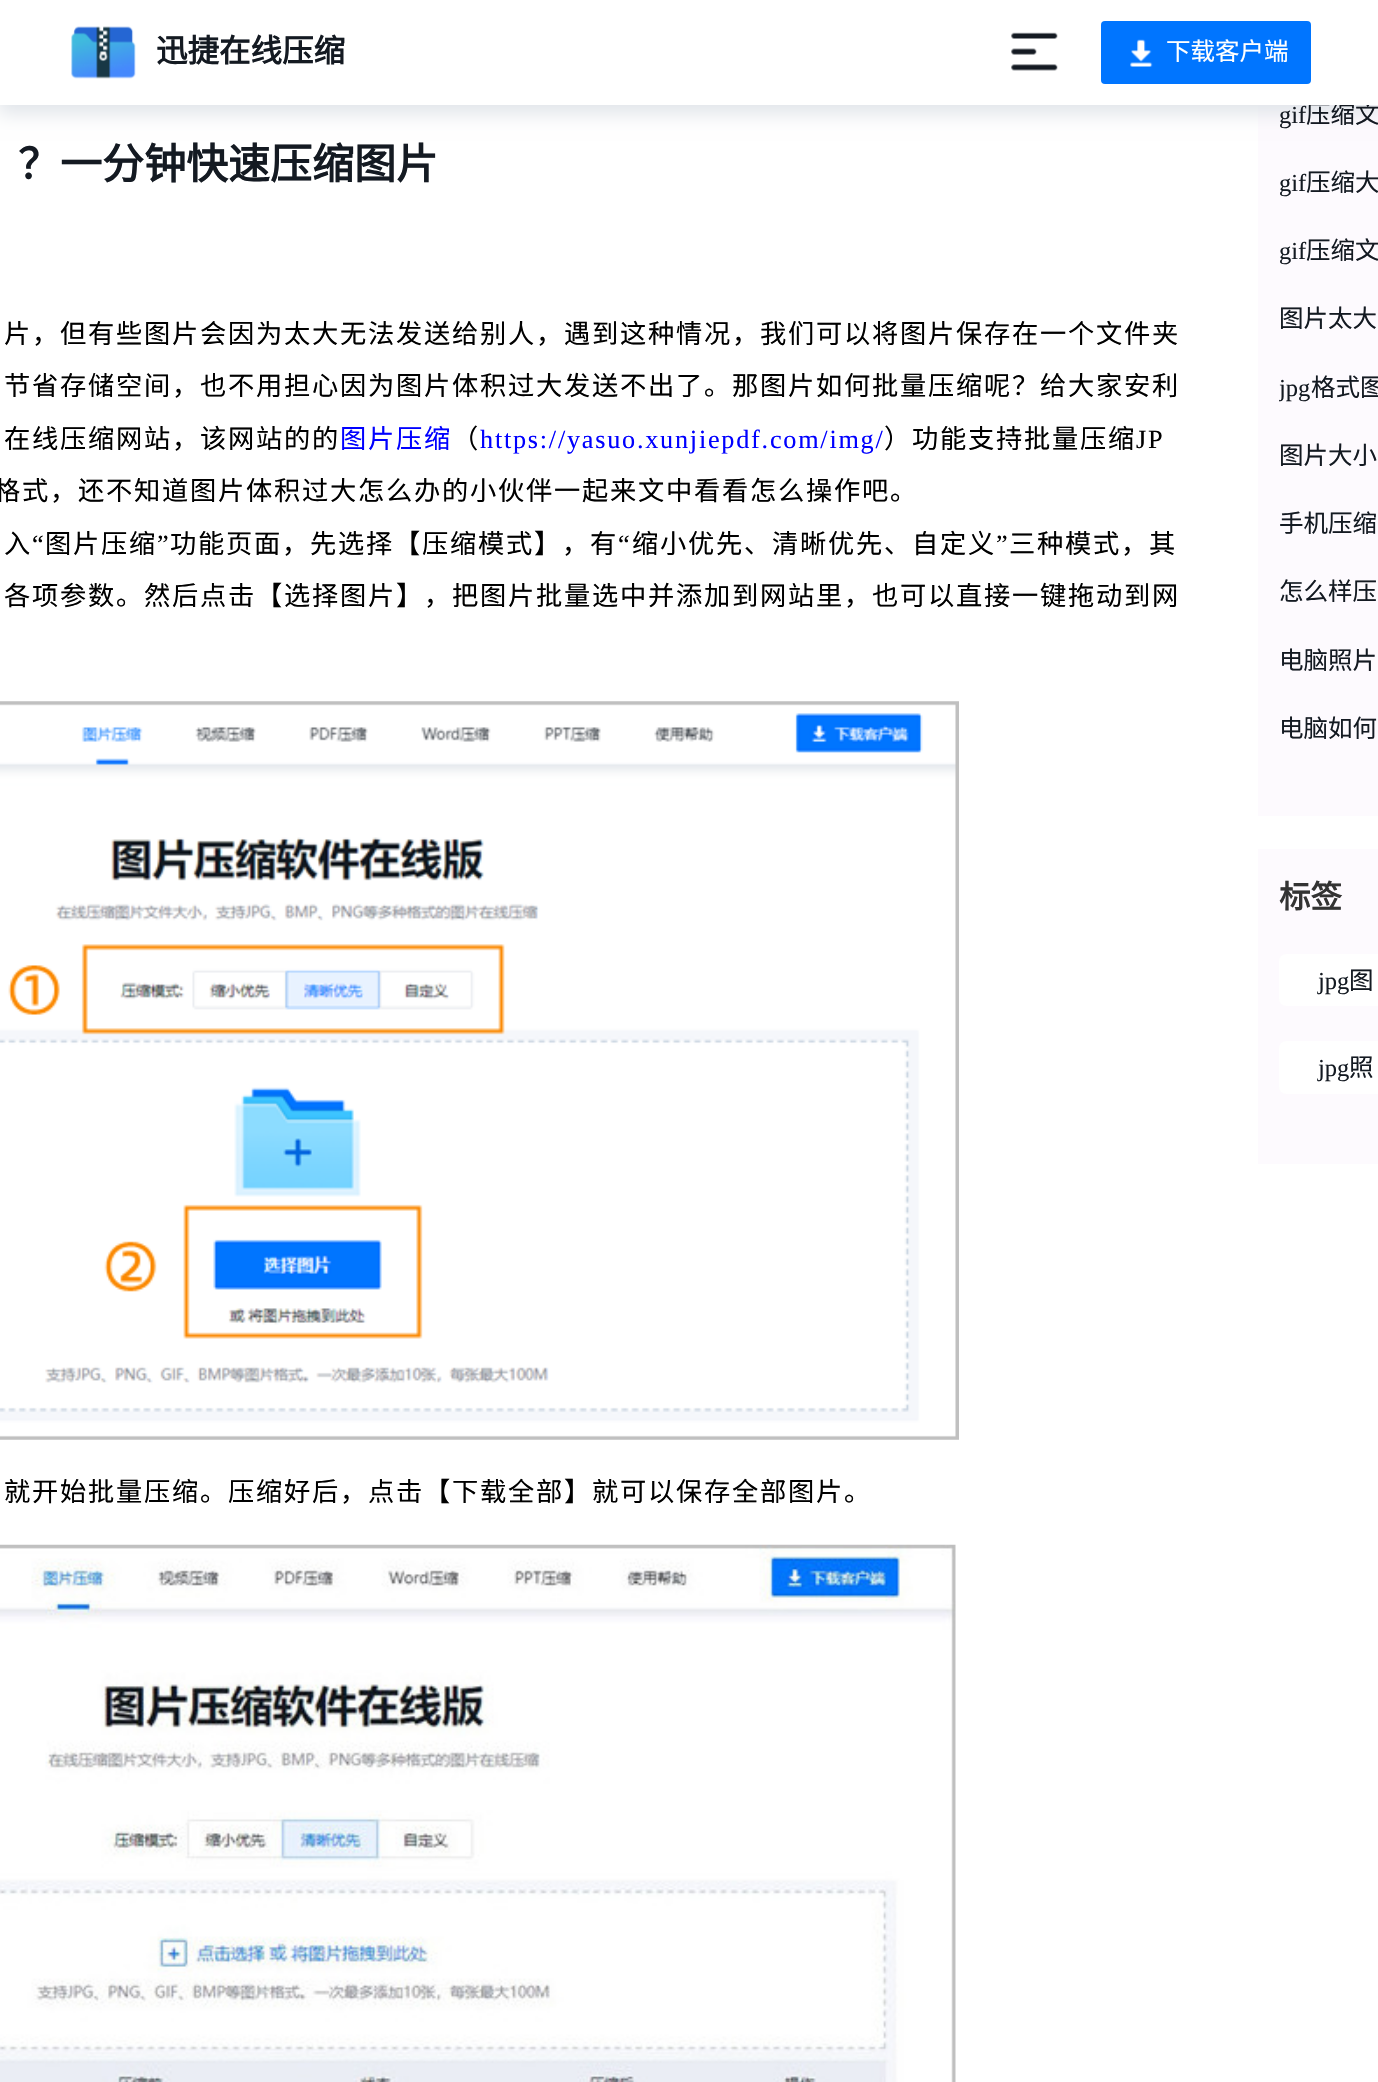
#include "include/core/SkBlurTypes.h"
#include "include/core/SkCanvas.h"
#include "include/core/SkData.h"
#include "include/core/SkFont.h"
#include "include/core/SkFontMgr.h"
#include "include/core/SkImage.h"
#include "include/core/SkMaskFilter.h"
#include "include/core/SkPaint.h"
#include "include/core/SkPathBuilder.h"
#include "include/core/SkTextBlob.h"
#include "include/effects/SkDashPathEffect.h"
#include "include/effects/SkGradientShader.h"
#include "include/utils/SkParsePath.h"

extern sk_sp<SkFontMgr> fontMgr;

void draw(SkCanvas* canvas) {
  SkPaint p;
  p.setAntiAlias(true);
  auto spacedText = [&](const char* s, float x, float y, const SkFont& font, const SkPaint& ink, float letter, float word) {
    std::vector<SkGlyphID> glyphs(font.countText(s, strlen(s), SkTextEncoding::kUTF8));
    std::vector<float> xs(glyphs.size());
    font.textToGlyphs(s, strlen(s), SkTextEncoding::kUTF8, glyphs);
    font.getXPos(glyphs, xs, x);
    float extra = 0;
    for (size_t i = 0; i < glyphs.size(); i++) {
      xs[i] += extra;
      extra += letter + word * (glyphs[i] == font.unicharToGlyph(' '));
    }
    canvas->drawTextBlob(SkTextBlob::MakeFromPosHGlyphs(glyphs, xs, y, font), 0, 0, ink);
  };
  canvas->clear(SK_ColorWHITE);
  p.setColor(SkColorSetRGB(253, 250, 254));
  canvas->drawRect(SkRect::MakeLTRB(1258, 105, 1378, 816), p);
  p.setColor(SkColorSetRGB(225, 229, 234));
  p.setMaskFilter(SkMaskFilter::MakeBlur(kNormal_SkBlurStyle, 9));
  canvas->drawRect(SkRect::MakeLTRB(-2, 5, 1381, 114), p);
  p.setMaskFilter(nullptr);
  canvas->drawImageRect(SkImages::DeferredFromEncodedData(SkData::MakeFromFileName("images/4.png")), SkRect::MakeLTRB(0, 701, 959, 1440), SkSamplingOptions());
  canvas->drawImageRect(SkImages::DeferredFromEncodedData(SkData::MakeFromFileName("images/5.png")), SkRect::MakeLTRB(0, 1544, 956, 2082), SkSamplingOptions());
  p.setColor(SkColorSetRGB(253, 250, 254));
  canvas->drawRect(SkRect::MakeLTRB(1258, 849, 1378, 1164), p);
  p.setColor(SK_ColorWHITE);
  canvas->drawPath(SkPathBuilder().moveTo(1286, 954).lineTo(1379, 954).lineTo(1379, 1006).lineTo(1286, 1006).cubicTo(1282, 1006, 1279, 1003, 1279, 999).lineTo(1279, 961).cubicTo(1279, 957, 1282, 954, 1286, 954).close().detach(), p);
  canvas->drawPath(SkPathBuilder().moveTo(1286, 1041).lineTo(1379, 1041).lineTo(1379, 1094).lineTo(1286, 1094).cubicTo(1282, 1094, 1279, 1091, 1279, 1087).lineTo(1279, 1048).cubicTo(1279, 1044, 1282, 1041, 1286, 1041).close().detach(), p);
  SkFont font1(fontMgr->matchFamilyStyle("Noto Sans CJK SC", SkFontStyle::Bold()), 42);
  font1.setSubpixel(true);
  p.setColor(SkColorSetRGB(20, 26, 34));
  canvas->drawString("？一分钟快速压缩图片", 18, 179, font1, p);
  SkFont font2(fontMgr->matchFamilyStyle("Noto Sans CJK SC", SkFontStyle::Normal()), 26.25f);
  font2.setSubpixel(true);
  p.setColor(SK_ColorBLACK);
  spacedText("片，但有些图片会因为太大无法发送给别人，遇到这种情况，我们可以将图片保存在一个文件夹", 4, 343, font2, p, 1.75f, 0);
  spacedText("节省存储空间，也不用担心因为图片体积过大发送不出了。那图片如何批量压缩呢？给大家安利", 4, 395, font2, p, 1.75f, 0);
  spacedText("在线压缩网站，该网站的的", 4, 448, font2, p, 1.75f, 0);
  p.setColor(SkColorSetRGB(0, 0, 255));
  spacedText("图片压缩", 340, 448, font2, p, 1.75f, 0);
  p.setColor(SK_ColorBLACK);
  spacedText("（", 452, 448, font2, p, 1.75f, 0);
  SkFont font3(fontMgr->matchFamilyStyle("Liberation Serif", SkFontStyle::Normal()), 26.25f);
  font3.setSubpixel(true);
  p.setColor(SkColorSetRGB(0, 0, 255));
  spacedText("https://yasuo.xunjiepdf.com/img/", 480, 448, font3, p, 1.75f, 0);
  p.setColor(SK_ColorBLACK);
  spacedText("）功能支持批量压缩", 884, 448, font2, p, 1.75f, 0);
  spacedText("JP", 1136, 448, font3, p, 1.75f, 0);
  spacedText("格式，还不知道图片体积过大怎么办的小伙伴一起来文中看看怎么操作吧。", -6, 500, font2, p, 1.75f, 0);
  spacedText("入", 4, 553, font2, p, 1.75f, 0);
  spacedText("“", 32, 553, font3, p, 1.75f, 0);
  spacedText("图片压缩", 45, 553, font2, p, 1.75f, 0);
  spacedText("”", 157, 553, font3, p, 1.75f, 0);
  spacedText("功能页面，先选择【压缩模式】，有", 170, 553, font2, p, 1.75f, 0);
  spacedText("“", 618, 553, font3, p, 1.75f, 0);
  spacedText("缩小优先、清晰优先、自定义", 632, 553, font2, p, 1.75f, 0);
  spacedText("”", 996, 553, font3, p, 1.75f, 0);
  spacedText("三种模式，其", 1009, 553, font2, p, 1.75f, 0);
  spacedText("各项参数。然后点击【选择图片】，把图片批量选中并添加到网站里，也可以直接一键拖动到网", 4, 605, font2, p, 1.75f, 0);
  spacedText("就开始批量压缩。压缩好后，点击【下载全部】就可以保存全部图片。", 4, 1501, font2, p, 1.75f, 0);
  SkFont font4(fontMgr->matchFamilyStyle("Liberation Serif", SkFontStyle::Normal()), 24.5f);
  font4.setSubpixel(true);
  p.setColor(SkColorSetRGB(20, 26, 34));
  canvas->drawString("gif", 1279, 123, font4, p);
  SkFont font5(fontMgr->matchFamilyStyle("Noto Sans CJK SC", SkFontStyle::Normal()), 24.5f);
  font5.setSubpixel(true);
  canvas->drawString("压缩文", 1306, 123, font5, p);
  p.setColor(SK_ColorWHITE);
  canvas->drawRect(SkRect::MakeLTRB(0, 0, 1378, 105), p);
  p.setColor(SkColorSetRGB(0, 117, 255));
  canvas->drawRoundRect(SkRect::MakeLTRB(1101, 21, 1311, 84), 4, 4, p);
  p.setColor(SK_ColorWHITE);
  canvas->drawString("下载客户端", 1166, 60, font5, p);
  canvas->drawImageRect(SkImages::DeferredFromEncodedData(SkData::MakeFromFileName("images/3.png")), SkRect::MakeLTRB(1130, 39, 1153, 67), SkSamplingOptions());
  canvas->drawImageRect(SkImages::DeferredFromEncodedData(SkData::MakeFromFileName("images/2.png")), SkRect::MakeLTRB(1011, 32, 1058, 71), SkSamplingOptions());
  SkFont font6(fontMgr->matchFamilyStyle("Noto Sans CJK SC", SkFontStyle::Bold()), 31.5f);
  font6.setSubpixel(true);
  p.setColor(SkColorSetRGB(20, 26, 34));
  canvas->drawString("迅捷在线压缩", 156, 62, font6, p);
  canvas->drawImageRect(SkImages::DeferredFromEncodedData(SkData::MakeFromFileName("images/1.png")), SkRect::MakeLTRB(71, 26, 136, 79), SkSamplingOptions());
  canvas->drawString("gif", 1279, 191, font4, p);
  canvas->drawString("压缩大", 1306, 191, font5, p);
  canvas->drawString("gif", 1279, 259, font4, p);
  canvas->drawString("压缩文", 1306, 259, font5, p);
  canvas->drawString("图片太大", 1279, 327, font5, p);
  canvas->save();
  canvas->clipRect(SkRect::MakeLTRB(1279, 371, 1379, 404));
  canvas->drawString("jpg", 1279, 396, font4, p);
  canvas->restore();
  canvas->drawString("格式图", 1311, 396, font5, p);
  canvas->drawString("图片大小", 1279, 464, font5, p);
  canvas->drawString("手机压缩", 1279, 532, font5, p);
  canvas->drawString("怎么样压", 1279, 600, font5, p);
  canvas->drawString("电脑照片", 1279, 669, font5, p);
  canvas->drawString("电脑如何", 1279, 737, font5, p);
  p.setColor(SkColorSetRGB(51, 51, 51));
  canvas->drawString("标签", 1279, 908, font6, p);
  p.setColor(SkColorSetRGB(20, 26, 34));
  canvas->drawString("jpg", 1318, 989, font4, p);
  canvas->drawString("图", 1349, 989, font5, p);
  canvas->drawString("jpg", 1318, 1076, font4, p);
  canvas->drawString("照", 1349, 1076, font5, p);
}
